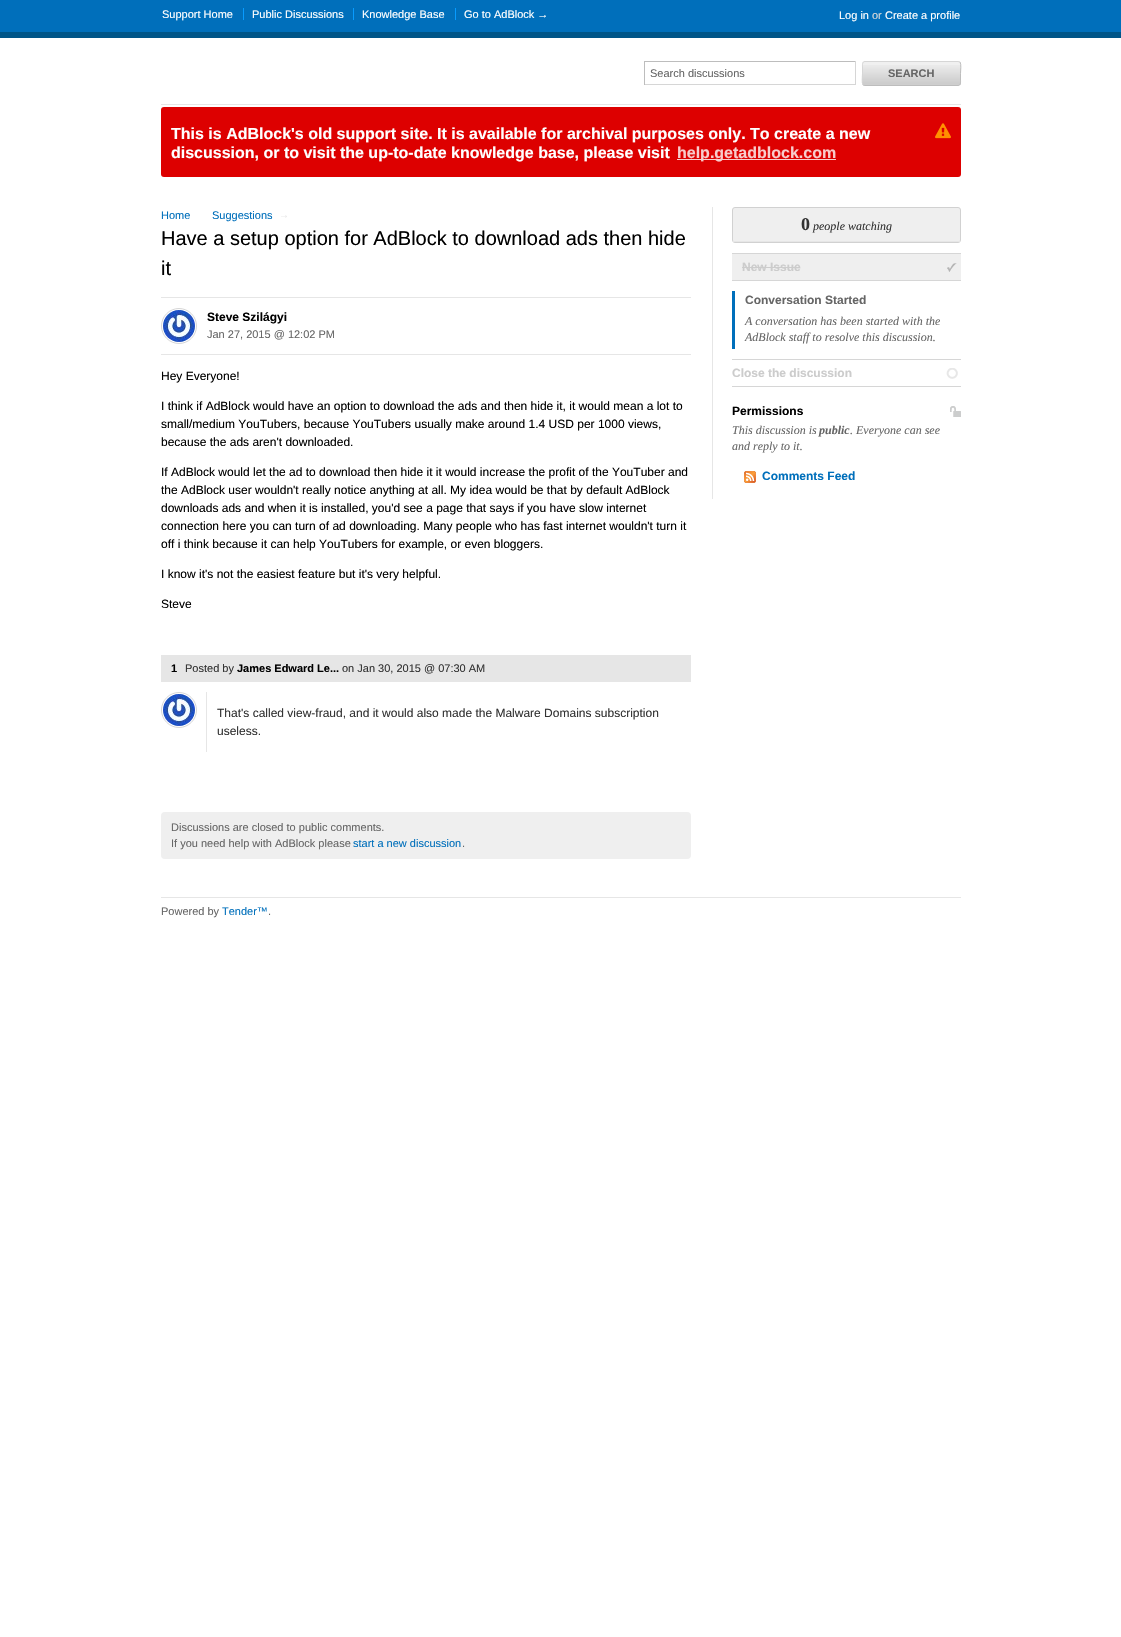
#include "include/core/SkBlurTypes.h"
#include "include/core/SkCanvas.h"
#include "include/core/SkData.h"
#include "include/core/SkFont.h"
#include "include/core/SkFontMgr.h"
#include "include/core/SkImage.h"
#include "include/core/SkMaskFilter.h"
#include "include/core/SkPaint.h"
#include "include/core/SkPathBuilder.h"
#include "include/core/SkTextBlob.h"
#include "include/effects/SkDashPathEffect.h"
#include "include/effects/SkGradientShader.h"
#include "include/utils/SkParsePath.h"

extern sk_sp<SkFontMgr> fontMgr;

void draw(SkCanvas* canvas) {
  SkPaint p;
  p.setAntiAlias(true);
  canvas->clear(SK_ColorWHITE);
  p.setColor(SkColorSetRGB(0, 111, 187));
  canvas->drawRect(SkRect::MakeLTRB(0, 0, 1121, 32), p);
  p.setColor(SkColorSetRGB(0, 85, 136));
  canvas->drawRect(SkRect::MakeLTRB(0, 32, 1121, 38), p);
  p.setColor(SkColorSetRGB(8, 155, 255));
  canvas->drawRect(SkRect::MakeLTRB(243, 8, 244, 20), p);
  canvas->drawRect(SkRect::MakeLTRB(353, 8, 354, 20), p);
  canvas->drawRect(SkRect::MakeLTRB(455, 8, 456, 20), p);
  p.setColor(SkColorSetRGB(230, 230, 230));
  canvas->drawRect(SkRect::MakeLTRB(161, 104, 961, 105), p);
  p.setColor(SkColorSetRGB(189, 189, 189));
  canvas->drawRect(SkRect::MakeLTRB(644, 61, 856, 62), p);
  p.setColor(SkColorSetRGB(214, 214, 214));
  canvas->drawRect(SkRect::MakeLTRB(855, 61, 856, 85), p);
  canvas->drawRect(SkRect::MakeLTRB(644, 84, 856, 85), p);
  p.setColor(SkColorSetRGB(189, 189, 189));
  canvas->drawRect(SkRect::MakeLTRB(644, 61, 645, 85), p);
  p.setColor(SkColorSetRGB(240, 240, 240));
  canvas->drawRoundRect(SkRect::MakeLTRB(862, 61, 961, 86), 3, 3, p);
  canvas->drawImageRect(SkImages::DeferredFromEncodedData(SkData::MakeFromFileName("images/1.png")), SkRect::MakeLTRB(862, 65, 961, 85), SkSamplingOptions());
  p.setStyle(SkPaint::kStroke_Style);
  p.setStrokeWidth(1);
  p.setColor(SkColorSetRGB(189, 189, 189));
  canvas->drawPath(SkPathBuilder().moveTo(960, 62).cubicTo(961.5f, 64, 960.5f, 71, 960.5f, 73.5f).lineTo(960.5f, 80).cubicTo(960.5f, 82, 961, 85.5f, 958, 85.5f).lineTo(865, 85.5f).lineTo(863, 85).detach(), p);
  p.setColor(SkColorSetRGB(214, 214, 214));
  canvas->drawPath(SkPathBuilder().moveTo(863, 85).cubicTo(861.5f, 83, 862.5f, 76, 862.5f, 73.5f).lineTo(862.5f, 67).cubicTo(862.5f, 65, 862, 61.5f, 865, 61.5f).lineTo(958, 61.5f).lineTo(960, 62).detach(), p);
  p.setStyle(SkPaint::kFill_Style);
  p.setColor(SkColorSetRGB(221, 0, 0));
  canvas->drawRoundRect(SkRect::MakeLTRB(161, 107, 961, 177), 3, 3, p);
  canvas->drawImageRect(SkImages::DeferredFromEncodedData(SkData::MakeFromFileName("images/2.png")), SkRect::MakeLTRB(935, 123, 951, 139), SkSamplingOptions());
  p.setColor(SkColorSetRGB(248, 204, 204));
  canvas->drawRect(SkRect::MakeLTRB(677, 159, 836, 160), p);
  p.setColor(SkColorSetRGB(230, 230, 230));
  canvas->drawRect(SkRect::MakeLTRB(161, 297, 691, 298), p);
  canvas->drawRect(SkRect::MakeLTRB(161, 354, 691, 355), p);
  p.setStyle(SkPaint::kStroke_Style);
  p.setColor(SkColorSetRGB(214, 214, 214));
  canvas->drawCircle(179, 326, 17.5f, p);
  canvas->drawImageRect(SkImages::DeferredFromEncodedData(SkData::MakeFromFileName("images/3.png")), SkRect::MakeLTRB(163, 310, 195, 342), SkSamplingOptions());
  p.setStyle(SkPaint::kFill_Style);
  p.setColor(SkColorSetRGB(230, 230, 230));
  canvas->drawRect(SkRect::MakeLTRB(161, 655, 691, 682), p);
  p.setStyle(SkPaint::kStroke_Style);
  p.setColor(SkColorSetRGB(214, 214, 214));
  canvas->drawCircle(179, 710, 17.5f, p);
  canvas->drawImageRect(SkImages::DeferredFromEncodedData(SkData::MakeFromFileName("images/3.png")), SkRect::MakeLTRB(163, 694, 195, 726), SkSamplingOptions());
  p.setStyle(SkPaint::kFill_Style);
  p.setColor(SkColorSetRGB(230, 230, 230));
  canvas->drawRect(SkRect::MakeLTRB(206, 692, 207, 752), p);
  p.setColor(SkColorSetRGB(239, 239, 239));
  canvas->drawRoundRect(SkRect::MakeLTRB(161, 812, 691, 859), 4, 4, p);
  p.setColor(SkColorSetRGB(230, 230, 230));
  canvas->drawRect(SkRect::MakeLTRB(712, 207, 713, 499), p);
  p.setColor(SkColorSetRGB(239, 239, 239));
  canvas->drawRoundRect(SkRect::MakeLTRB(732.5f, 207.5f, 960.5f, 242.5f), 2.5f, 2.5f, p);
  p.setStyle(SkPaint::kStroke_Style);
  p.setColor(SkColorSetRGB(209, 209, 209));
  canvas->drawRoundRect(SkRect::MakeLTRB(732.5f, 207.5f, 960.5f, 242.5f), 2.5f, 2.5f, p);
  p.setStyle(SkPaint::kFill_Style);
  p.setColor(SkColorSetRGB(230, 230, 230));
  canvas->drawRect(SkRect::MakeLTRB(733, 241, 960, 242), p);
  p.setColor(SkColorSetRGB(214, 214, 214));
  canvas->drawRect(SkRect::MakeLTRB(732, 253, 961, 254), p);
  p.setColor(SkColorSetRGB(239, 239, 239));
  canvas->drawRect(SkRect::MakeLTRB(732, 254, 961, 280), p);
  canvas->drawImageRect(SkImages::DeferredFromEncodedData(SkData::MakeFromFileName("images/4.png")), SkRect::MakeLTRB(947, 263, 957, 272), SkSamplingOptions());
  p.setColor(SkColorSetRGB(214, 214, 214));
  canvas->drawRect(SkRect::MakeLTRB(732, 280, 961, 281), p);
  p.setColor(SkColorSetRGB(204, 204, 204));
  canvas->drawRect(SkRect::MakeLTRB(742, 267, 800, 268), p);
  p.setColor(SkColorSetRGB(0, 111, 187));
  canvas->drawRect(SkRect::MakeLTRB(732, 291, 735, 349), p);
  canvas->drawImageRect(SkImages::DeferredFromEncodedData(SkData::MakeFromFileName("images/5.png")), SkRect::MakeLTRB(946, 368, 958, 379), SkSamplingOptions());
  p.setColor(SkColorSetRGB(214, 214, 214));
  canvas->drawRect(SkRect::MakeLTRB(732, 359, 961, 360), p);
  canvas->drawRect(SkRect::MakeLTRB(732, 386, 961, 387), p);
  canvas->drawImageRect(SkImages::DeferredFromEncodedData(SkData::MakeFromFileName("images/6.png")), SkRect::MakeLTRB(950, 406, 961, 417), SkSamplingOptions());
  canvas->drawImageRect(SkImages::DeferredFromEncodedData(SkData::MakeFromFileName("images/7.png")), SkRect::MakeLTRB(744, 471, 756, 483), SkSamplingOptions());
  p.setColor(SkColorSetRGB(230, 230, 230));
  canvas->drawRect(SkRect::MakeLTRB(161, 897, 961, 898), p);
  SkFont font1(fontMgr->matchFamilyStyle("Liberation Sans", SkFontStyle::Normal()), 11);
  font1.setSubpixel(true);
  p.setColor(SK_ColorWHITE);
  canvas->drawString("Support Home", 162, 18, font1, p);
  canvas->drawString("Public Discussions", 252, 18, font1, p);
  canvas->drawString("Knowledge Base", 362, 18, font1, p);
  canvas->drawString("Go to AdBlock →", 464, 18, font1, p);
  canvas->drawString("Log in", 839, 19, font1, p);
  p.setColor(SkColorSetRGB(217, 217, 217));
  canvas->drawString("or", 872, 19, font1, p);
  p.setColor(SK_ColorWHITE);
  canvas->drawString("Create a profile", 885, 19, font1, p);
  p.setColor(SkColorSetRGB(102, 102, 102));
  canvas->drawString("Search discussions", 650, 77, font1, p);
  SkFont font2(fontMgr->matchFamilyStyle("Liberation Sans", SkFontStyle::Bold()), 11);
  font2.setSubpixel(true);
  canvas->drawString("SEARCH", 888, 77, font2, p);
  SkFont font3(fontMgr->matchFamilyStyle("Liberation Sans", SkFontStyle::Bold()), 16);
  font3.setSubpixel(true);
  p.setColor(SK_ColorWHITE);
  canvas->drawString("This is AdBlock's old support site. It is available for archival purposes only. To create a new", 171, 139, font3, p);
  canvas->drawString("discussion, or to visit the up-to-date knowledge base, please visit", 171, 158, font3, p);
  p.setColor(SkColorSetRGB(248, 204, 204));
  canvas->drawString("help.getadblock.com", 677, 158, font3, p);
  p.setColor(SkColorSetRGB(0, 111, 187));
  canvas->drawString("Home", 161, 219, font1, p);
  canvas->drawString("Suggestions", 212, 219, font1, p);
  SkFont font4(fontMgr->matchFamilyStyle("Liberation Sans", SkFontStyle::Normal()), 10);
  font4.setSubpixel(true);
  p.setColor(SkColorSetRGB(230, 230, 230));
  canvas->drawString("→", 279, 218, font4, p);
  SkFont font5(fontMgr->matchFamilyStyle("Liberation Sans", SkFontStyle::Normal()), 20);
  font5.setSubpixel(true);
  p.setColor(SK_ColorBLACK);
  canvas->drawString("Have a setup option for AdBlock to download ads then hide", 161, 245, font5, p);
  canvas->drawString("it", 161, 275, font5, p);
  SkFont font6(fontMgr->matchFamilyStyle("Liberation Sans", SkFontStyle::Bold()), 12);
  font6.setSubpixel(true);
  canvas->drawString("Steve Szilágyi", 207, 321, font6, p);
  p.setColor(SkColorSetRGB(102, 102, 102));
  canvas->drawString("Jan 27, 2015 @ 12:02 PM", 207, 338, font1, p);
  SkFont font7(fontMgr->matchFamilyStyle("Liberation Sans", SkFontStyle::Normal()), 12);
  font7.setSubpixel(true);
  p.setColor(SK_ColorBLACK);
  canvas->drawString("Hey Everyone!", 161, 380, font7, p);
  canvas->drawString("I think if AdBlock would have an option to download the ads and then hide it, it would mean a lot to", 161, 410, font7, p);
  canvas->drawString("small/medium YouTubers, because YouTubers usually make around 1.4 USD per 1000 views,", 161, 428, font7, p);
  canvas->drawString("because the ads aren't downloaded.", 161, 446, font7, p);
  canvas->drawString("If AdBlock would let the ad to download then hide it it would increase the profit of the YouTuber and", 161, 476, font7, p);
  canvas->drawString("the AdBlock user wouldn't really notice anything at all. My idea would be that by default AdBlock", 161, 494, font7, p);
  canvas->drawString("downloads ads and when it is installed, you'd see a page that says if you have slow internet", 161, 512, font7, p);
  canvas->drawString("connection here you can turn of ad downloading. Many people who has fast internet wouldn't turn it", 161, 530, font7, p);
  canvas->drawString("off i think because it can help YouTubers for example, or even bloggers.", 161, 548, font7, p);
  canvas->drawString("I know it's not the easiest feature but it's very helpful.", 161, 578, font7, p);
  canvas->drawString("Steve", 161, 608, font7, p);
  canvas->drawString("1", 171, 672, font2, p);
  p.setColor(SkColorSetRGB(51, 51, 51));
  canvas->drawString("Posted by", 185, 672, font1, p);
  p.setColor(SK_ColorBLACK);
  canvas->drawString("James Edward Le...", 237, 672, font2, p);
  p.setColor(SkColorSetRGB(51, 51, 51));
  canvas->drawString("on Jan 30, 2015 @ 07:30 AM", 342, 672, font1, p);
  canvas->drawString("That's called view-fraud, and it would also made the Malware Domains subscription", 217, 717, font7, p);
  canvas->drawString("useless.", 217, 735, font7, p);
  p.setColor(SkColorSetRGB(102, 102, 102));
  canvas->drawString("Discussions are closed to public comments.", 171, 831, font1, p);
  canvas->drawString("If you need help with AdBlock please", 171, 847, font1, p);
  p.setColor(SkColorSetRGB(0, 111, 187));
  canvas->drawString("start a new discussion", 353, 847, font1, p);
  p.setColor(SkColorSetRGB(102, 102, 102));
  canvas->drawString(".", 462, 847, font1, p);
  SkFont font8(fontMgr->matchFamilyStyle("Liberation Serif", SkFontStyle::Bold()), 18);
  font8.setSubpixel(true);
  p.setColor(SkColorSetRGB(51, 51, 51));
  canvas->drawString("0", 801, 230, font8, p);
  SkFont font9(fontMgr->matchFamilyStyle("Liberation Serif", SkFontStyle::Italic()), 12);
  font9.setSubpixel(true);
  canvas->drawString("people watching", 813, 230, font9, p);
  p.setColor(SkColorSetRGB(204, 204, 204));
  canvas->drawString("New Issue", 742, 271, font6, p);
  p.setColor(SkColorSetRGB(102, 102, 102));
  canvas->drawString("Conversation Started", 745, 304, font6, p);
  canvas->drawString("A conversation has been started with the", 745, 325, font9, p);
  canvas->drawString("AdBlock staff to resolve this discussion.", 745, 341, font9, p);
  p.setColor(SkColorSetRGB(204, 204, 204));
  canvas->drawString("Close the discussion", 732, 377, font6, p);
  p.setColor(SK_ColorBLACK);
  canvas->drawString("Permissions", 732, 415, font6, p);
  p.setColor(SkColorSetRGB(102, 102, 102));
  canvas->drawString("This discussion is", 732, 434, font9, p);
  SkFont font10(fontMgr->matchFamilyStyle("Liberation Serif", SkFontStyle::BoldItalic()), 12);
  font10.setSubpixel(true);
  canvas->drawString("public", 819, 434, font10, p);
  canvas->drawString(". Everyone can see", 850, 434, font9, p);
  canvas->drawString("and reply to it.", 732, 450, font9, p);
  p.setColor(SkColorSetRGB(0, 111, 187));
  canvas->drawString("Comments Feed", 762, 480, font6, p);
  p.setColor(SkColorSetRGB(102, 102, 102));
  canvas->drawString("Powered by", 161, 915, font1, p);
  p.setColor(SkColorSetRGB(0, 111, 187));
  canvas->drawString("Tender™", 222, 915, font1, p);
  p.setColor(SkColorSetRGB(102, 102, 102));
  canvas->drawString(".", 268, 915, font1, p);
}
